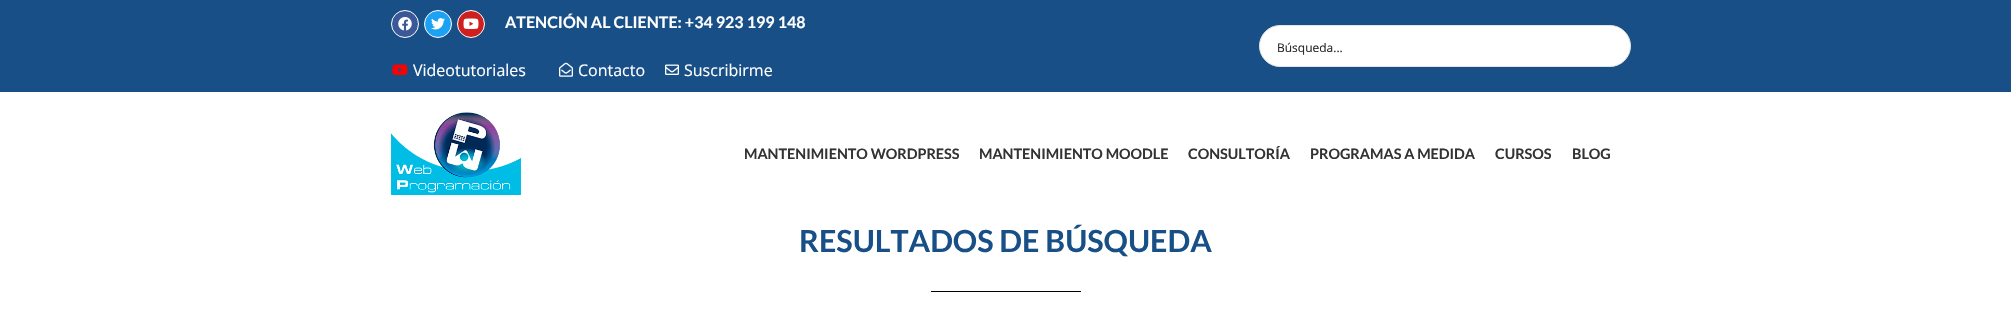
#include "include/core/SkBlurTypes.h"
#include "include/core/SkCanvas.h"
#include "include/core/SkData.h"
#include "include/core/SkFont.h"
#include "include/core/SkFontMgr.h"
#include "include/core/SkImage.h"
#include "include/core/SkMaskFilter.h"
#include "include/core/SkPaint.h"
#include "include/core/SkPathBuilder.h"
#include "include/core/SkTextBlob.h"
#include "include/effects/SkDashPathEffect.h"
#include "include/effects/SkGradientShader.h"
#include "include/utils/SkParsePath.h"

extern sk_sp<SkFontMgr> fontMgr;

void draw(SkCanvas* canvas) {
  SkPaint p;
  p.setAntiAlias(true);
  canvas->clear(SK_ColorWHITE);
  p.setColor(SkColorSetRGB(24, 79, 135));
  canvas->drawRect(SkRect::MakeLTRB(0, 0, 2011, 92), p);
  p.setColor(SkColorSetRGB(59, 89, 152));
  canvas->drawCircle(405, 24, 13.5f, p);
  p.setStyle(SkPaint::kStroke_Style);
  p.setStrokeWidth(1);
  p.setColor(SK_ColorWHITE);
  canvas->drawCircle(405, 24, 13.5f, p);
  canvas->drawImageRect(SkImages::DeferredFromEncodedData(SkData::MakeFromFileName("images/1.png")), SkRect::MakeLTRB(398, 17, 412, 31), SkSamplingOptions());
  p.setStyle(SkPaint::kFill_Style);
  p.setColor(SkColorSetRGB(29, 161, 242));
  canvas->drawCircle(438, 24, 13.5f, p);
  p.setStyle(SkPaint::kStroke_Style);
  p.setColor(SK_ColorWHITE);
  canvas->drawCircle(438, 24, 13.5f, p);
  canvas->drawImageRect(SkImages::DeferredFromEncodedData(SkData::MakeFromFileName("images/2.png")), SkRect::MakeLTRB(431, 18, 445, 30), SkSamplingOptions());
  p.setStyle(SkPaint::kFill_Style);
  p.setColor(SkColorSetRGB(205, 32, 31));
  canvas->drawCircle(471, 24, 13.5f, p);
  p.setStyle(SkPaint::kStroke_Style);
  p.setColor(SK_ColorWHITE);
  canvas->drawCircle(471, 24, 13.5f, p);
  canvas->drawImageRect(SkImages::DeferredFromEncodedData(SkData::MakeFromFileName("images/3.png")), SkRect::MakeLTRB(463, 18, 479, 29), SkSamplingOptions());
  canvas->drawImageRect(SkImages::DeferredFromEncodedData(SkData::MakeFromFileName("images/4.png")), SkRect::MakeLTRB(392, 64, 408, 75), SkSamplingOptions());
  canvas->drawImageRect(SkImages::DeferredFromEncodedData(SkData::MakeFromFileName("images/5.png")), SkRect::MakeLTRB(559, 62, 573, 77), SkSamplingOptions());
  canvas->drawImageRect(SkImages::DeferredFromEncodedData(SkData::MakeFromFileName("images/6.png")), SkRect::MakeLTRB(665, 64, 679, 75), SkSamplingOptions());
  p.setStyle(SkPaint::kFill_Style);
  canvas->drawRoundRect(SkRect::MakeLTRB(1259.5f, 25.5f, 1630.5f, 66.5f), 20.5f, 20.5f, p);
  p.setStyle(SkPaint::kStroke_Style);
  p.setColor(SkColorSetRGB(228, 228, 228));
  canvas->drawRoundRect(SkRect::MakeLTRB(1259.5f, 25.5f, 1630.5f, 66.5f), 20.5f, 20.5f, p);
  canvas->drawImageRect(SkImages::DeferredFromEncodedData(SkData::MakeFromFileName("images/7.png")), SkRect::MakeLTRB(391, 112, 521, 195), SkSamplingOptions());
  p.setStyle(SkPaint::kFill_Style);
  p.setColor(SK_ColorBLACK);
  canvas->drawRect(SkRect::MakeLTRB(931, 291, 1081, 292), p);
  SkFont font1(fontMgr->matchFamilyStyle("Lato", SkFontStyle::Bold()), 16);
  font1.setSubpixel(true);
  p.setColor(SK_ColorWHITE);
  canvas->drawString("ATENCIÓN AL CLIENTE: +34 923 199 148", 505, 28, font1, p);
  SkFont font2(fontMgr->matchFamilyStyle("Open Sans", SkFontStyle::Normal()), 16);
  font2.setSubpixel(true);
  canvas->drawString("Videotutoriales", 413, 76, font2, p);
  canvas->drawString("Contacto", 578, 76, font2, p);
  canvas->drawString("Suscribirme", 684, 76, font2, p);
  SkFont font3(fontMgr->matchFamilyStyle("Open Sans", SkFontStyle::Normal()), 12);
  font3.setSubpixel(true);
  p.setColor(SkColorSetRGB(38, 38, 38));
  canvas->drawString("Búsqueda...", 1277, 52, font3, p);
  SkFont font4(fontMgr->matchFamilyStyle("Lato", SkFontStyle::Bold()), 14.4f);
  font4.setSubpixel(true);
  p.setColor(SkColorSetRGB(51, 51, 51));
  canvas->drawString("MANTENIMIENTO WORDPRESS", 744, 159, font4, p);
  canvas->drawString("MANTENIMIENTO MOODLE", 979, 159, font4, p);
  canvas->drawString("CONSULTORÍA", 1188, 159, font4, p);
  canvas->drawString("PROGRAMAS A MEDIDA", 1310, 159, font4, p);
  canvas->drawString("CURSOS", 1495, 159, font4, p);
  canvas->drawString("BLOG", 1572, 159, font4, p);
  SkFont font5(fontMgr->matchFamilyStyle("Lato", SkFontStyle::Bold()), 30.4f);
  font5.setSubpixel(true);
  p.setColor(SkColorSetRGB(24, 79, 135));
  canvas->drawString("RESULTADOS DE BÚSQUEDA", 799, 252, font5, p);
}
